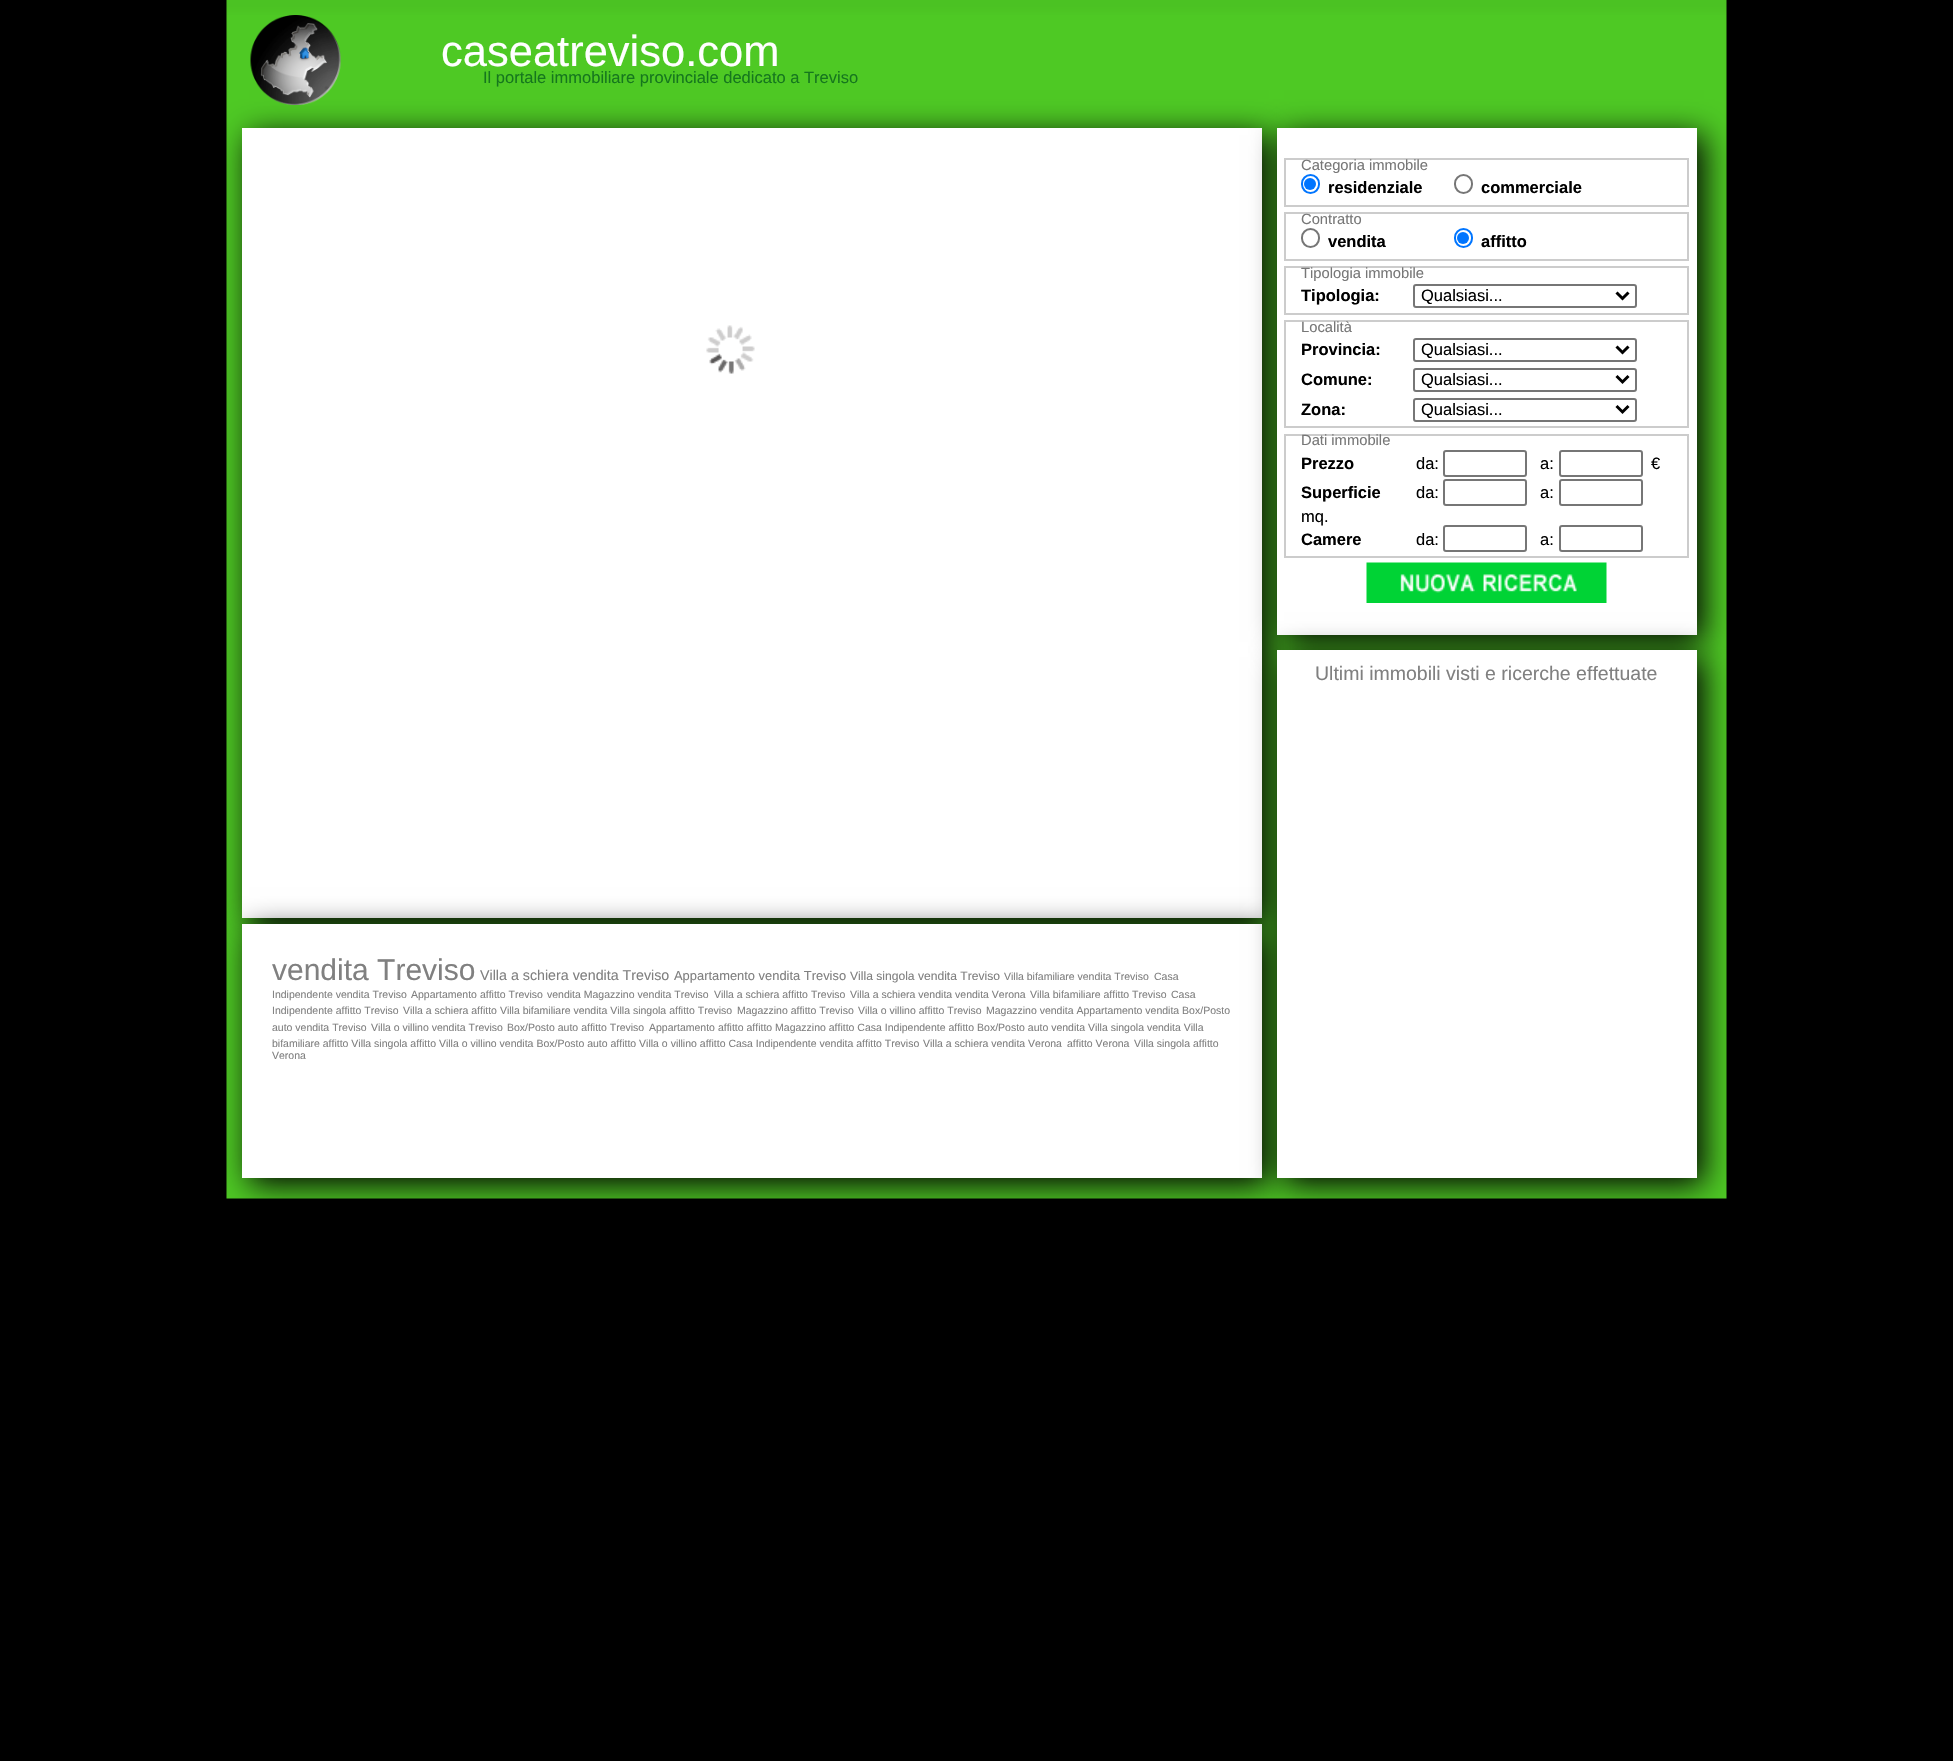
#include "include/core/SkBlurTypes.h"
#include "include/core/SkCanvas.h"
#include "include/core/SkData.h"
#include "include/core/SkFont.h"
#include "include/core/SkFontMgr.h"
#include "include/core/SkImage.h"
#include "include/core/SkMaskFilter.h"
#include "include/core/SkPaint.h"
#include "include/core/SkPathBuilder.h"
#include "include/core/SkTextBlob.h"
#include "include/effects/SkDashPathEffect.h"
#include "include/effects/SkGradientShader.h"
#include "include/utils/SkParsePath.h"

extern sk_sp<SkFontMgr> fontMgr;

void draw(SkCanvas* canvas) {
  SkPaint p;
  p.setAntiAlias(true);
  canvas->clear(SK_ColorBLACK);
  canvas->drawImageRect(SkImages::DeferredFromEncodedData(SkData::MakeFromFileName("images/1.png")), SkRect::MakeLTRB(226, 0, 1727, 1199), SkSamplingOptions());
  canvas->drawImageRect(SkImages::DeferredFromEncodedData(SkData::MakeFromFileName("images/2.png")), SkRect::MakeLTRB(250, 15, 341, 105), SkSamplingOptions());
  p.setColor(SK_ColorBLACK);
  p.setMaskFilter(SkMaskFilter::MakeBlur(kNormal_SkBlurStyle, 15));
  canvas->drawRect(SkRect::MakeLTRB(249, 135, 1269, 926), p);
  p.setMaskFilter(nullptr);
  p.setColor(SK_ColorWHITE);
  canvas->drawRect(SkRect::MakeLTRB(242, 128, 1262, 918), p);
  canvas->drawImageRect(SkImages::DeferredFromEncodedData(SkData::MakeFromFileName("images/3.png")), SkRect::MakeLTRB(706, 325, 755, 374), SkSamplingOptions());
  p.setColor(SK_ColorBLACK);
  p.setMaskFilter(SkMaskFilter::MakeBlur(kNormal_SkBlurStyle, 15));
  canvas->drawRect(SkRect::MakeLTRB(1284, 135, 1704, 642), p);
  p.setMaskFilter(nullptr);
  p.setColor(SK_ColorWHITE);
  canvas->drawRect(SkRect::MakeLTRB(1277, 128, 1697, 635), p);
  p.setStyle(SkPaint::kStroke_Style);
  p.setStrokeWidth(2);
  p.setColor(SkColorSetRGB(204, 204, 204));
  canvas->drawRect(SkRect::MakeLTRB(1285, 159, 1688, 206), p);
  p.setColor(SkColorSetRGB(0, 117, 255));
  canvas->drawRoundRect(SkRect::MakeLTRB(1302, 175, 1319, 193), 8.5f, 8.5f, p);
  p.setStyle(SkPaint::kFill_Style);
  canvas->drawCircle(1310, 184, 6, p);
  p.setStyle(SkPaint::kStroke_Style);
  p.setColor(SkColorSetRGB(118, 118, 118));
  canvas->drawRoundRect(SkRect::MakeLTRB(1455, 175, 1472, 193), 8.5f, 8.5f, p);
  p.setColor(SkColorSetRGB(204, 204, 204));
  canvas->drawRect(SkRect::MakeLTRB(1285, 213, 1688, 260), p);
  p.setColor(SkColorSetRGB(118, 118, 118));
  canvas->drawRoundRect(SkRect::MakeLTRB(1302, 229, 1319, 247), 8.5f, 8.5f, p);
  p.setColor(SkColorSetRGB(0, 117, 255));
  canvas->drawRoundRect(SkRect::MakeLTRB(1455, 229, 1472, 247), 8.5f, 8.5f, p);
  p.setStyle(SkPaint::kFill_Style);
  canvas->drawCircle(1463, 238, 6, p);
  p.setStyle(SkPaint::kStroke_Style);
  p.setColor(SkColorSetRGB(204, 204, 204));
  canvas->drawRect(SkRect::MakeLTRB(1285, 267, 1688, 314), p);
  p.setColor(SkColorSetRGB(118, 118, 118));
  canvas->drawRoundRect(SkRect::MakeLTRB(1414, 285, 1636, 307), 2, 2, p);
  p.setStrokeWidth(3);
  p.setColor(SK_ColorBLACK);
  canvas->drawPath(SkPathBuilder().moveTo(1616.5f, 292.5f).lineTo(1622.5f, 298.5f).lineTo(1628.5f, 292.5f).detach(), p);
  p.setStrokeWidth(2);
  p.setColor(SkColorSetRGB(204, 204, 204));
  canvas->drawRect(SkRect::MakeLTRB(1285, 321, 1688, 427), p);
  p.setColor(SkColorSetRGB(118, 118, 118));
  canvas->drawRoundRect(SkRect::MakeLTRB(1414, 339, 1636, 361), 2, 2, p);
  p.setStrokeWidth(3);
  p.setColor(SK_ColorBLACK);
  canvas->drawPath(SkPathBuilder().moveTo(1616.5f, 346.5f).lineTo(1622.5f, 352.5f).lineTo(1628.5f, 346.5f).detach(), p);
  p.setStrokeWidth(2);
  p.setColor(SkColorSetRGB(118, 118, 118));
  canvas->drawRoundRect(SkRect::MakeLTRB(1414, 369, 1636, 391), 2, 2, p);
  p.setStrokeWidth(3);
  p.setColor(SK_ColorBLACK);
  canvas->drawPath(SkPathBuilder().moveTo(1616.5f, 376).lineTo(1622.5f, 382).lineTo(1628.5f, 376).detach(), p);
  p.setStrokeWidth(2);
  p.setColor(SkColorSetRGB(118, 118, 118));
  canvas->drawRoundRect(SkRect::MakeLTRB(1414, 399, 1636, 421), 2, 2, p);
  p.setStrokeWidth(3);
  p.setColor(SK_ColorBLACK);
  canvas->drawPath(SkPathBuilder().moveTo(1616.5f, 406).lineTo(1622.5f, 412).lineTo(1628.5f, 406).detach(), p);
  p.setStrokeWidth(2);
  p.setColor(SkColorSetRGB(204, 204, 204));
  canvas->drawRect(SkRect::MakeLTRB(1285, 435, 1688, 557), p);
  p.setColor(SkColorSetRGB(118, 118, 118));
  canvas->drawRoundRect(SkRect::MakeLTRB(1444, 451, 1526, 476), 2, 2, p);
  canvas->drawRoundRect(SkRect::MakeLTRB(1560, 451, 1642, 476), 2, 2, p);
  canvas->drawRoundRect(SkRect::MakeLTRB(1444, 480, 1526, 505), 2, 2, p);
  canvas->drawRoundRect(SkRect::MakeLTRB(1560, 480, 1642, 505), 2, 2, p);
  canvas->drawRoundRect(SkRect::MakeLTRB(1444, 526, 1526, 551), 2, 2, p);
  canvas->drawRoundRect(SkRect::MakeLTRB(1560, 526, 1642, 551), 2, 2, p);
  canvas->drawImageRect(SkImages::DeferredFromEncodedData(SkData::MakeFromFileName("images/4.png")), SkRect::MakeLTRB(1366, 562, 1607, 603), SkSamplingOptions());
  p.setStyle(SkPaint::kFill_Style);
  p.setColor(SK_ColorBLACK);
  p.setMaskFilter(SkMaskFilter::MakeBlur(kNormal_SkBlurStyle, 15));
  canvas->drawRect(SkRect::MakeLTRB(249, 932, 1269, 1185), p);
  p.setMaskFilter(nullptr);
  p.setColor(SK_ColorWHITE);
  canvas->drawRect(SkRect::MakeLTRB(242, 924, 1262, 1178), p);
  p.setColor(SK_ColorBLACK);
  p.setMaskFilter(SkMaskFilter::MakeBlur(kNormal_SkBlurStyle, 15));
  canvas->drawRect(SkRect::MakeLTRB(1284, 657, 1704, 1185), p);
  p.setMaskFilter(nullptr);
  p.setColor(SK_ColorWHITE);
  canvas->drawRect(SkRect::MakeLTRB(1277, 650, 1697, 1178), p);
  SkFont font1(fontMgr->matchFamilyStyle("Liberation Sans", SkFontStyle::Normal()), 43.5f);
  font1.setSubpixel(true);
  canvas->drawString("caseatreviso.com", 441, 66, font1, p);
  SkFont font2(fontMgr->matchFamilyStyle("Liberation Sans", SkFontStyle::Normal()), 16.5f);
  font2.setSubpixel(true);
  p.setColor(SkColorSetRGB(21, 119, 29));
  canvas->drawString("Il portale immobiliare provinciale dedicato a Treviso", 483, 83, font2, p);
  SkFont font3(fontMgr->matchFamilyStyle("Liberation Sans", SkFontStyle::Normal()), 14.75f);
  font3.setSubpixel(true);
  p.setColor(SkColorSetRGB(119, 119, 119));
  canvas->drawString("Categoria immobile", 1301, 170, font3, p);
  SkFont font4(fontMgr->matchFamilyStyle("Liberation Sans", SkFontStyle::Bold()), 16.5f);
  font4.setSubpixel(true);
  p.setColor(SK_ColorBLACK);
  canvas->drawString("residenziale", 1328, 193, font4, p);
  canvas->drawString("commerciale", 1481, 193, font4, p);
  p.setColor(SkColorSetRGB(119, 119, 119));
  canvas->drawString("Contratto", 1301, 224, font3, p);
  p.setColor(SK_ColorBLACK);
  canvas->drawString("vendita", 1328, 247, font4, p);
  canvas->drawString("affitto", 1481, 247, font4, p);
  p.setColor(SkColorSetRGB(119, 119, 119));
  canvas->drawString("Tipologia immobile", 1301, 278, font3, p);
  p.setColor(SK_ColorBLACK);
  canvas->drawString("Tipologia:", 1301, 301, font4, p);
  canvas->drawString("Qualsiasi...", 1421, 301, font2, p);
  p.setColor(SkColorSetRGB(119, 119, 119));
  canvas->drawString("Località", 1301, 332, font3, p);
  p.setColor(SK_ColorBLACK);
  canvas->drawString("Provincia:", 1301, 355, font4, p);
  canvas->drawString("Qualsiasi...", 1421, 355, font2, p);
  canvas->drawString("Comune:", 1301, 385, font4, p);
  canvas->drawString("Qualsiasi...", 1421, 385, font2, p);
  canvas->drawString("Zona:", 1301, 415, font4, p);
  canvas->drawString("Qualsiasi...", 1421, 415, font2, p);
  p.setColor(SkColorSetRGB(119, 119, 119));
  canvas->drawString("Dati immobile", 1301, 445, font3, p);
  p.setColor(SK_ColorBLACK);
  canvas->drawString("Prezzo", 1301, 469, font4, p);
  canvas->drawString("da:", 1416, 469, font2, p);
  canvas->drawString("a:", 1540, 469, font2, p);
  canvas->drawString("€", 1651, 469, font2, p);
  canvas->drawString("Superficie", 1301, 498, font4, p);
  canvas->drawString("da:", 1416, 498, font2, p);
  canvas->drawString("a:", 1540, 498, font2, p);
  canvas->drawString("mq.", 1301, 522, font2, p);
  canvas->drawString("Camere", 1301, 545, font4, p);
  canvas->drawString("da:", 1416, 545, font2, p);
  canvas->drawString("a:", 1540, 545, font2, p);
  SkFont font5(fontMgr->matchFamilyStyle("Liberation Sans", SkFontStyle::Normal()), 19.5f);
  font5.setSubpixel(true);
  p.setColor(SkColorSetRGB(128, 128, 128));
  canvas->drawString("Ultimi immobili visti e ricerche effettuate", 1315, 680, font5, p);
  SkFont font6(fontMgr->matchFamilyStyle("Liberation Sans", SkFontStyle::Normal()), 30);
  font6.setSubpixel(true);
  canvas->drawString("vendita Treviso", 272, 980, font6, p);
  SkFont font7(fontMgr->matchFamilyStyle("Liberation Sans", SkFontStyle::Normal()), 14.25f);
  font7.setSubpixel(true);
  canvas->drawString("Villa a schiera vendita Treviso", 480, 980, font7, p);
  SkFont font8(fontMgr->matchFamilyStyle("Liberation Sans", SkFontStyle::Normal()), 12.9f);
  font8.setSubpixel(true);
  canvas->drawString("Appartamento vendita Treviso", 674, 980, font8, p);
  SkFont font9(fontMgr->matchFamilyStyle("Liberation Sans", SkFontStyle::Normal()), 12.1f);
  font9.setSubpixel(true);
  canvas->drawString("Villa singola vendita Treviso", 850, 980, font9, p);
  SkFont font10(fontMgr->matchFamilyStyle("Liberation Sans", SkFontStyle::Normal()), 10.5f);
  font10.setSubpixel(true);
  canvas->drawString("Villa bifamiliare vendita Treviso", 1004, 980, font10, p);
  canvas->drawString("Casa", 1154, 980, font10, p);
  canvas->drawString("Indipendente vendita Treviso", 272, 998, font10, p);
  canvas->drawString("Appartamento affitto Treviso", 411, 998, font10, p);
  canvas->drawString("vendita Magazzino vendita Treviso", 547, 998, font10, p);
  canvas->drawString("Villa a schiera affitto Treviso", 714, 998, font10, p);
  canvas->drawString("Villa a schiera vendita vendita Verona", 850, 998, font10, p);
  canvas->drawString("Villa bifamiliare affitto Treviso", 1030, 998, font10, p);
  canvas->drawString("Casa", 1171, 998, font10, p);
  canvas->drawString("Indipendente affitto Treviso", 272, 1014, font10, p);
  canvas->drawString("Villa a schiera affitto Villa bifamiliare vendita Villa singola affitto Treviso", 403, 1014, font10, p);
  canvas->drawString("Magazzino affitto Treviso", 737, 1014, font10, p);
  canvas->drawString("Villa o villino affitto Treviso", 858, 1014, font10, p);
  canvas->drawString("Magazzino vendita Appartamento vendita Box/Posto", 986, 1014, font10, p);
  canvas->drawString("auto vendita Treviso", 272, 1031, font10, p);
  canvas->drawString("Villa o villino vendita Treviso", 371, 1031, font10, p);
  canvas->drawString("Box/Posto auto affitto Treviso", 507, 1031, font10, p);
  canvas->drawString("Appartamento affitto affitto Magazzino affitto Casa Indipendente affitto Box/Posto auto vendita Villa singola vendita Villa", 649, 1031, font10, p);
  canvas->drawString("bifamiliare affitto Villa singola affitto Villa o villino vendita Box/Posto auto affitto Villa o villino affitto Casa Indipendente vendita affitto Treviso", 272, 1047, font10, p);
  canvas->drawString("Villa a schiera vendita Verona", 923, 1047, font10, p);
  canvas->drawString("affitto Verona", 1067, 1047, font10, p);
  canvas->drawString("Villa singola affitto", 1134, 1047, font10, p);
  canvas->drawString("Verona", 272, 1059, font10, p);
}
